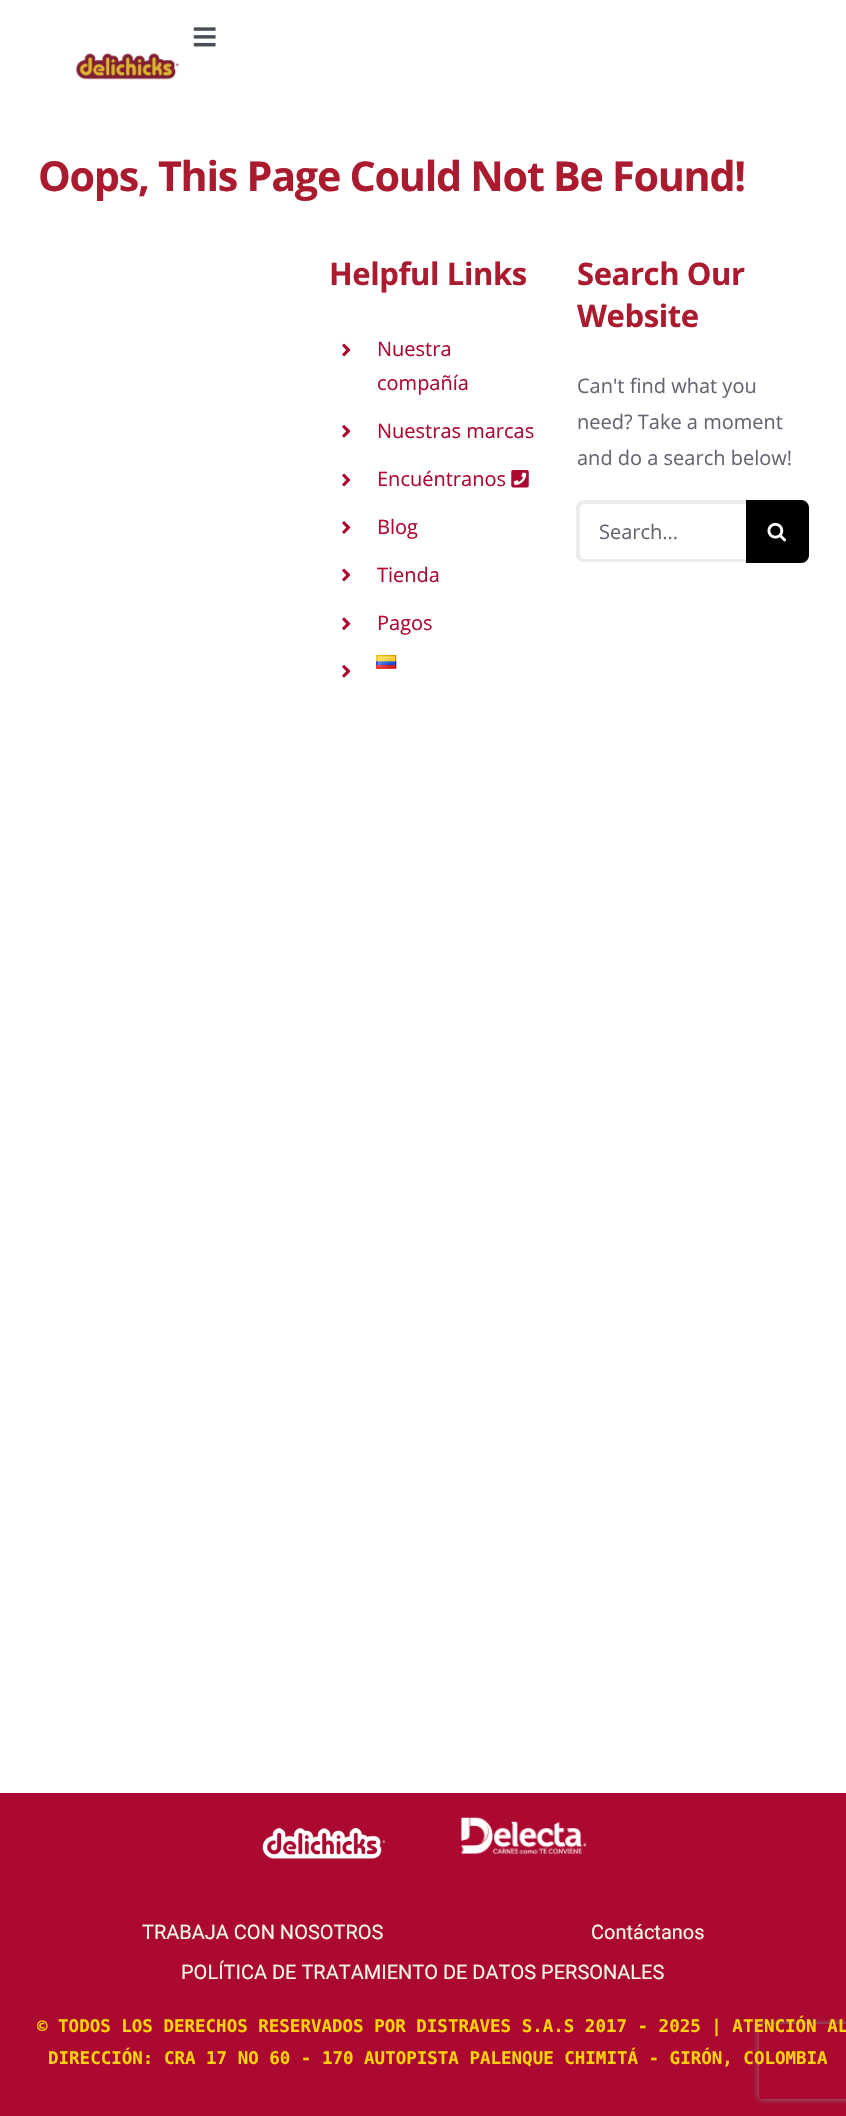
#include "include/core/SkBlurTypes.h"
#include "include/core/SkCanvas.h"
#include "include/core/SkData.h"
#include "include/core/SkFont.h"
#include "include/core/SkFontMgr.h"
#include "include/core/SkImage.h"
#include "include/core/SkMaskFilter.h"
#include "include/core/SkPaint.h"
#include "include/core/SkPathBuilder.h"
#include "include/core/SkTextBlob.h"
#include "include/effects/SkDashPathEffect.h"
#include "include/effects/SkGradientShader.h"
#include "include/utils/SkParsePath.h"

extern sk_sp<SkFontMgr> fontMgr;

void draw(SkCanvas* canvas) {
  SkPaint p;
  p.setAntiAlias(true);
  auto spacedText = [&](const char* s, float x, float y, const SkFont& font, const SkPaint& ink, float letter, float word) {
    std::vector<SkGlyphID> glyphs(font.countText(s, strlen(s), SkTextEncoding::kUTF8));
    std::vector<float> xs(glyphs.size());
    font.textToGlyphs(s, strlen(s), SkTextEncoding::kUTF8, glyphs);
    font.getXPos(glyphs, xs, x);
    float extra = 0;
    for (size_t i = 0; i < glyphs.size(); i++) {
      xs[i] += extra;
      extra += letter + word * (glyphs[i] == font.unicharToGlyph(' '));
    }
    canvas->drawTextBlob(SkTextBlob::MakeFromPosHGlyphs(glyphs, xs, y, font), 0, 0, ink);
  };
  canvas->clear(SK_ColorWHITE);
  canvas->drawImageRect(SkImages::DeferredFromEncodedData(SkData::MakeFromFileName("images/1.png")), SkRect::MakeLTRB(193, 27, 216, 47), SkSamplingOptions());
  canvas->drawImageRect(SkImages::DeferredFromEncodedData(SkData::MakeFromFileName("images/2.png")), SkRect::MakeLTRB(76, 53, 179, 80), SkSamplingOptions());
  canvas->drawImageRect(SkImages::DeferredFromEncodedData(SkData::MakeFromFileName("images/3.png")), SkRect::MakeLTRB(342, 343, 351, 357), SkSamplingOptions());
  canvas->drawImageRect(SkImages::DeferredFromEncodedData(SkData::MakeFromFileName("images/4.png")), SkRect::MakeLTRB(342, 425, 351, 438), SkSamplingOptions());
  canvas->drawImageRect(SkImages::DeferredFromEncodedData(SkData::MakeFromFileName("images/3.png")), SkRect::MakeLTRB(342, 473, 351, 487), SkSamplingOptions());
  canvas->drawImageRect(SkImages::DeferredFromEncodedData(SkData::MakeFromFileName("images/5.png")), SkRect::MakeLTRB(511, 470, 529, 488), SkSamplingOptions());
  canvas->drawImageRect(SkImages::DeferredFromEncodedData(SkData::MakeFromFileName("images/6.png")), SkRect::MakeLTRB(342, 521, 351, 534), SkSamplingOptions());
  canvas->drawImageRect(SkImages::DeferredFromEncodedData(SkData::MakeFromFileName("images/3.png")), SkRect::MakeLTRB(342, 568, 351, 582), SkSamplingOptions());
  canvas->drawImageRect(SkImages::DeferredFromEncodedData(SkData::MakeFromFileName("images/7.png")), SkRect::MakeLTRB(342, 617, 351, 630), SkSamplingOptions());
  canvas->drawImageRect(SkImages::DeferredFromEncodedData(SkData::MakeFromFileName("images/8.png")), SkRect::MakeLTRB(376, 655, 397, 669), SkSamplingOptions());
  canvas->drawImageRect(SkImages::DeferredFromEncodedData(SkData::MakeFromFileName("images/4.png")), SkRect::MakeLTRB(342, 665, 351, 678), SkSamplingOptions());
  p.setColor(SkColorSetRGB(236, 236, 237));
  canvas->drawPath(SkPathBuilder().moveTo(584, 500).lineTo(583, 500).cubicTo(579, 501, 576, 504, 576, 508).lineTo(576, 555).cubicTo(576, 559, 580, 562, 584, 562).lineTo(746, 562).lineTo(746, 559).lineTo(584, 559).cubicTo(582, 559, 580, 557, 580, 555).lineTo(580, 508).cubicTo(580, 505, 582, 504, 584, 504).lineTo(746, 504).lineTo(746, 500).close().detach(), p);
  p.setColor(SK_ColorBLACK);
  canvas->drawPath(SkPathBuilder().moveTo(746, 500).lineTo(801, 500).cubicTo(805.5f, 500, 809, 503.5f, 809, 508).lineTo(809, 555).cubicTo(809, 559.5f, 805.5f, 563, 801, 563).lineTo(746, 563).close().detach(), p);
  canvas->drawImageRect(SkImages::DeferredFromEncodedData(SkData::MakeFromFileName("images/9.png")), SkRect::MakeLTRB(767, 522, 786, 542), SkSamplingOptions());
  p.setColor(SkColorSetRGB(171, 9, 47));
  canvas->drawRect(SkRect::MakeLTRB(0, 1793, 846, 2116), p);
  canvas->drawImageRect(SkImages::DeferredFromEncodedData(SkData::MakeFromFileName("images/10.png")), SkRect::MakeLTRB(262, 1828, 385, 1859), SkSamplingOptions());
  canvas->drawImageRect(SkImages::DeferredFromEncodedData(SkData::MakeFromFileName("images/11.png")), SkRect::MakeLTRB(461, 1817, 587, 1854), SkSamplingOptions());
  canvas->save();
  canvas->clipPath(SkPathBuilder(SkPathFillType::kEvenOdd).moveTo(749, 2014).lineTo(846, 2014).lineTo(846, 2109).lineTo(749, 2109).close().moveTo(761.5f, 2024).lineTo(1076.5f, 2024).cubicTo(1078, 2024, 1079, 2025, 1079, 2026.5f).lineTo(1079, 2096.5f).cubicTo(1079, 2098, 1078, 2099, 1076.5f, 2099).lineTo(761.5f, 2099).cubicTo(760, 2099, 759, 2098, 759, 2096.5f).lineTo(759, 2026.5f).cubicTo(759, 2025, 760, 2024, 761.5f, 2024).close().detach(), true);
  p.setColor(SkColorSetRGB(128, 128, 128));
  p.setMaskFilter(SkMaskFilter::MakeBlur(kNormal_SkBlurStyle, 3));
  canvas->drawRoundRect(SkRect::MakeLTRB(759, 2024, 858, 2099), 2.5f, 2.5f, p);
  p.setMaskFilter(nullptr);
  canvas->restore();
  SkFont font1(fontMgr->matchFamilyStyle("Open Sans", SkFontStyle::Bold()), 41.25f);
  font1.setSubpixel(true);
  p.setColor(SkColorSetRGB(171, 27, 47));
  spacedText("Oops, This Page Could Not Be Found!", 38, 191, font1, p, -1.25f, 0);
  SkFont font2(fontMgr->matchFamilyStyle("Open Sans", SkFontStyle::Bold()), 31);
  font2.setSubpixel(true);
  spacedText("Helpful Links", 329, 285, font2, p, -0.4f, 0);
  SkFont font3(fontMgr->matchFamilyStyle("Open Sans", SkFontStyle::Normal()), 20);
  font3.setSubpixel(true);
  p.setColor(SkColorSetRGB(171, 9, 47));
  canvas->drawString("Nuestra", 377, 356, font3, p);
  canvas->drawString("compañía", 377, 390, font3, p);
  canvas->drawString("Nuestras marcas", 377, 438, font3, p);
  canvas->drawString("Encuéntranos", 377, 486, font3, p);
  canvas->drawString("Blog", 377, 534, font3, p);
  canvas->drawString("Tienda", 377, 582, font3, p);
  canvas->drawString("Pagos", 377, 630, font3, p);
  p.setColor(SkColorSetRGB(171, 27, 47));
  spacedText("Search Our", 577, 285, font2, p, -0.4f, 0);
  spacedText("Website", 577, 327, font2, p, -0.4f, 0);
  p.setColor(SkColorSetRGB(103, 99, 113));
  canvas->drawString("Can't find what you", 577, 393, font3, p);
  canvas->drawString("need? Take a moment", 577, 429, font3, p);
  canvas->drawString("and do a search below!", 577, 465, font3, p);
  canvas->drawString("Search...", 599, 539, font3, p);
  SkFont font4(fontMgr->matchFamilyStyle("Roboto", SkFontStyle::Normal()), 20);
  font4.setSubpixel(true);
  p.setColor(SkColorSetRGB(247, 247, 232));
  canvas->drawString("TRABAJA CON NOSOTROS", 142, 1939, font4, p);
  canvas->drawString("Contáctanos", 591, 1939, font4, p);
  canvas->drawString("POLÍTICA DE TRATAMIENTO DE DATOS PERSONALES", 181, 1979, font4, p);
  SkFont font5(fontMgr->matchFamilyStyle("DejaVu Sans Mono", SkFontStyle::Bold()), 17.5f);
  font5.setSubpixel(true);
  p.setColor(SkColorSetRGB(253, 210, 11));
  canvas->drawString("© TODOS LOS DERECHOS RESERVADOS POR DISTRAVES S.A.S 2017 - 2025 | ATENCIÓN AL", 37, 2032, font5, p);
  canvas->drawString("DIRECCIÓN: CRA 17 NO 60 - 170 AUTOPISTA PALENQUE CHIMITÁ - GIRÓN, COLOMBIA", 48, 2064, font5, p);
}
